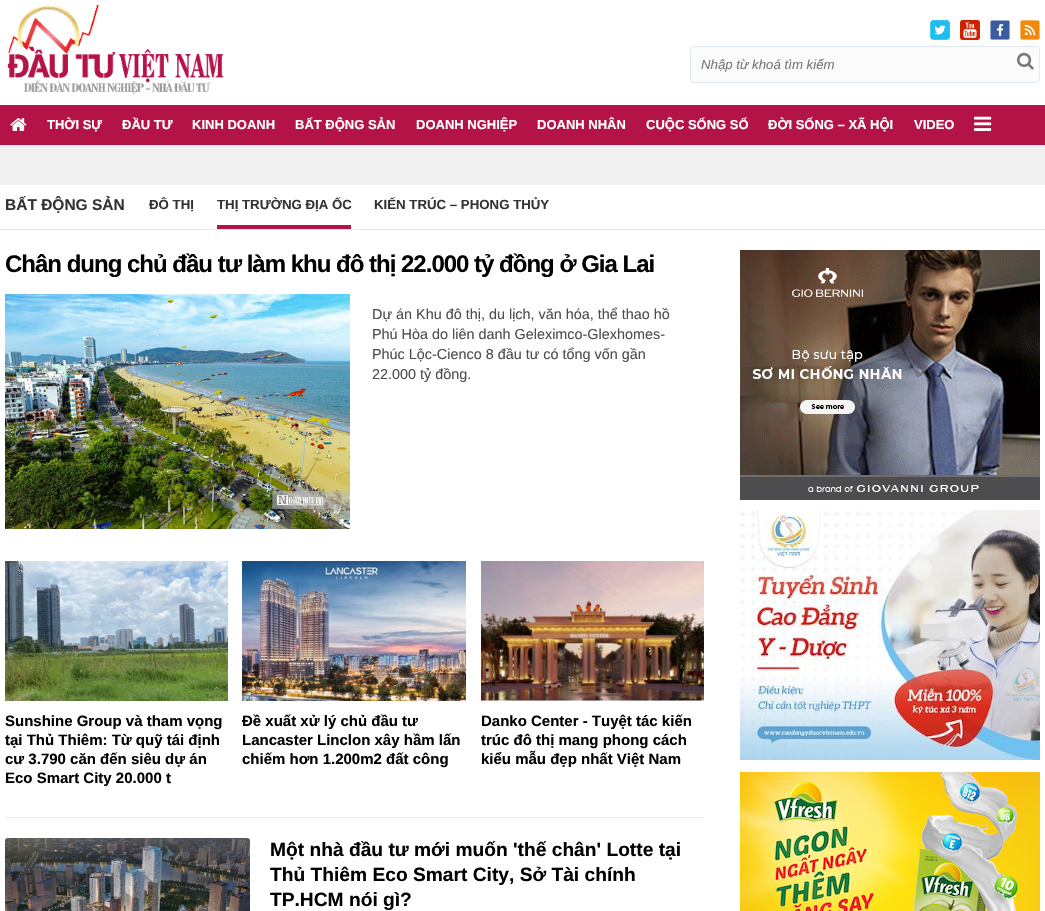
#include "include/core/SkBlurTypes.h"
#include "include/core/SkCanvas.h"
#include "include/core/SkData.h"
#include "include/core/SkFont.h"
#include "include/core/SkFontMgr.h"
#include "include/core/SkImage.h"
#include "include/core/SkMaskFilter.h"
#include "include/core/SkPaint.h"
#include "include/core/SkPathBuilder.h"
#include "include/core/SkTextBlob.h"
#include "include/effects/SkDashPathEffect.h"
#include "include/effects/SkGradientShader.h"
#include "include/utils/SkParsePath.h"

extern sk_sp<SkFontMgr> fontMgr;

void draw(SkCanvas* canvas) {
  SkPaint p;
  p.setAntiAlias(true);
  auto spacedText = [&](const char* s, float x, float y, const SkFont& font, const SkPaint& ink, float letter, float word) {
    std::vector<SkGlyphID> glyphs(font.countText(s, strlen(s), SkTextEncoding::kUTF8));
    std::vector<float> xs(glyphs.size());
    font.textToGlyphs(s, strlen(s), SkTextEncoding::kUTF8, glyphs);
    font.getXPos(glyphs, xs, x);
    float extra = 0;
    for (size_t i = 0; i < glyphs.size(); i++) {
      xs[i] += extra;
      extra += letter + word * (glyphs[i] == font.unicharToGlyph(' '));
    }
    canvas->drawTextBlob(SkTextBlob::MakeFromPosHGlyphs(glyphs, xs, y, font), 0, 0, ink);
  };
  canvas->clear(SK_ColorWHITE);
  canvas->drawImageRect(SkImages::DeferredFromEncodedData(SkData::MakeFromFileName("images/1.png")), SkRect::MakeLTRB(7, 5, 224, 94), SkSamplingOptions());
  canvas->drawImageRect(SkImages::DeferredFromEncodedData(SkData::MakeFromFileName("images/2.png")), SkRect::MakeLTRB(930, 20, 950, 40), SkSamplingOptions());
  canvas->drawImageRect(SkImages::DeferredFromEncodedData(SkData::MakeFromFileName("images/3.png")), SkRect::MakeLTRB(960, 20, 980, 40), SkSamplingOptions());
  canvas->drawImageRect(SkImages::DeferredFromEncodedData(SkData::MakeFromFileName("images/4.png")), SkRect::MakeLTRB(990, 20, 1010, 40), SkSamplingOptions());
  canvas->drawImageRect(SkImages::DeferredFromEncodedData(SkData::MakeFromFileName("images/5.png")), SkRect::MakeLTRB(1020, 20, 1040, 40), SkSamplingOptions());
  p.setColor(SkColorSetRGB(251, 251, 251));
  canvas->drawRoundRect(SkRect::MakeLTRB(690.5f, 46.5f, 1039.5f, 82.5f), 3.5f, 3.5f, p);
  p.setStyle(SkPaint::kStroke_Style);
  p.setStrokeWidth(1);
  p.setColor(SkColorSetRGB(226, 234, 241));
  canvas->drawRoundRect(SkRect::MakeLTRB(690.5f, 46.5f, 1039.5f, 82.5f), 3.5f, 3.5f, p);
  canvas->drawImageRect(SkImages::DeferredFromEncodedData(SkData::MakeFromFileName("images/6.png")), SkRect::MakeLTRB(1017, 52, 1034, 70), SkSamplingOptions());
  p.setStyle(SkPaint::kFill_Style);
  p.setColor(SkColorSetRGB(180, 19, 71));
  canvas->drawRect(SkRect::MakeLTRB(0, 105, 1045, 145), p);
  canvas->drawImageRect(SkImages::DeferredFromEncodedData(SkData::MakeFromFileName("images/7.png")), SkRect::MakeLTRB(10, 118, 27, 131), SkSamplingOptions());
  canvas->drawImageRect(SkImages::DeferredFromEncodedData(SkData::MakeFromFileName("images/8.png")), SkRect::MakeLTRB(974, 116, 992, 131), SkSamplingOptions());
  p.setColor(SkColorSetRGB(241, 241, 241));
  canvas->drawRect(SkRect::MakeLTRB(0, 145, 1045, 185), p);
  p.setColor(SkColorSetRGB(231, 231, 231));
  canvas->drawRect(SkRect::MakeLTRB(0, 229, 1045, 230), p);
  p.setColor(SkColorSetRGB(180, 19, 71));
  canvas->drawRect(SkRect::MakeLTRB(217, 225, 351, 229), p);
  canvas->drawImageRect(SkImages::DeferredFromEncodedData(SkData::MakeFromFileName("images/9.png")), SkRect::MakeLTRB(5, 294, 350, 529), SkSamplingOptions());
  canvas->drawImageRect(SkImages::DeferredFromEncodedData(SkData::MakeFromFileName("images/10.png")), SkRect::MakeLTRB(5, 561, 228, 701), SkSamplingOptions());
  canvas->drawImageRect(SkImages::DeferredFromEncodedData(SkData::MakeFromFileName("images/11.png")), SkRect::MakeLTRB(242, 561, 466, 701), SkSamplingOptions());
  canvas->drawImageRect(SkImages::DeferredFromEncodedData(SkData::MakeFromFileName("images/12.png")), SkRect::MakeLTRB(481, 561, 704, 701), SkSamplingOptions());
  p.setColor(SkColorSetRGB(235, 235, 235));
  canvas->drawRect(SkRect::MakeLTRB(5, 817, 704, 818), p);
  canvas->drawImageRect(SkImages::DeferredFromEncodedData(SkData::MakeFromFileName("images/13.png")), SkRect::MakeLTRB(5, 838, 250, 911), SkSamplingOptions());
  canvas->drawImageRect(SkImages::DeferredFromEncodedData(SkData::MakeFromFileName("images/14.png")), SkRect::MakeLTRB(740, 250, 1040, 500), SkSamplingOptions());
  canvas->drawImageRect(SkImages::DeferredFromEncodedData(SkData::MakeFromFileName("images/15.png")), SkRect::MakeLTRB(740, 510, 1040, 760), SkSamplingOptions());
  canvas->drawImageRect(SkImages::DeferredFromEncodedData(SkData::MakeFromFileName("images/16.png")), SkRect::MakeLTRB(740, 772, 1040, 911), SkSamplingOptions());
  SkFont font1(fontMgr->matchFamilyStyle("Liberation Sans", SkFontStyle::Italic()), 13.25f);
  font1.setSubpixel(true);
  p.setColor(SkColorSetRGB(119, 119, 119));
  canvas->drawString("Nhập từ khoá tìm kiếm", 701, 69, font1, p);
  SkFont font2(fontMgr->matchFamilyStyle("Liberation Sans", SkFontStyle::Bold()), 13);
  font2.setSubpixel(true);
  p.setColor(SK_ColorWHITE);
  canvas->drawString("THỜI SỰ", 47, 129, font2, p);
  canvas->drawString("ĐẦU TƯ", 122, 129, font2, p);
  canvas->drawString("KINH DOANH", 192, 129, font2, p);
  canvas->drawString("BẤT ĐỘNG SẢN", 295, 129, font2, p);
  canvas->drawString("DOANH NGHIỆP", 416, 129, font2, p);
  canvas->drawString("DOANH NHÂN", 537, 129, font2, p);
  canvas->drawString("CUỘC SỐNG SỐ", 646, 129, font2, p);
  canvas->drawString("ĐỜI SỐNG – XÃ HỘI", 768, 129, font2, p);
  canvas->drawString("VIDEO", 914, 129, font2, p);
  SkFont font3(fontMgr->matchFamilyStyle("Liberation Sans", SkFontStyle::Bold()), 15.5f);
  font3.setSubpixel(true);
  p.setColor(SkColorSetRGB(51, 51, 51));
  canvas->drawString("BẤT ĐỘNG SẢN", 5, 210, font3, p);
  SkFont font4(fontMgr->matchFamilyStyle("Liberation Sans", SkFontStyle::Bold()), 13.25f);
  font4.setSubpixel(true);
  canvas->drawString("ĐÔ THỊ", 149, 209, font4, p);
  canvas->drawString("THỊ TRƯỜNG ĐỊA ỐC", 217, 209, font4, p);
  canvas->drawString("KIẾN TRÚC – PHONG THỦY", 374, 209, font4, p);
  SkFont font5(fontMgr->matchFamilyStyle("Liberation Sans", SkFontStyle::Bold()), 24);
  font5.setSubpixel(true);
  p.setColor(SK_ColorBLACK);
  spacedText("Chân dung chủ đầu tư làm khu đô thị 22.000 tỷ đồng ở Gia Lai", 5, 272, font5, p, -1, 0);
  SkFont font6(fontMgr->matchFamilyStyle("Liberation Sans", SkFontStyle::Normal()), 14.4f);
  font6.setSubpixel(true);
  p.setColor(SkColorSetRGB(77, 77, 77));
  canvas->drawString("Dự án Khu đô thị, du lịch, văn hóa, thể thao hồ", 372, 319, font6, p);
  canvas->drawString("Phú Hòa do liên danh Geleximco-Glexhomes-", 372, 339, font6, p);
  canvas->drawString("Phúc Lộc-Cienco 8 đầu tư có tổng vốn gần", 372, 359, font6, p);
  canvas->drawString("22.000 tỷ đồng.", 372, 379, font6, p);
  SkFont font7(fontMgr->matchFamilyStyle("Liberation Sans", SkFontStyle::Bold()), 15);
  font7.setSubpixel(true);
  p.setColor(SK_ColorBLACK);
  canvas->drawString("Sunshine Group và tham vọng", 5, 726, font7, p);
  canvas->drawString("tại Thủ Thiêm: Từ quỹ tái định", 5, 745, font7, p);
  canvas->drawString("cư 3.790 căn đến siêu dự án", 5, 764, font7, p);
  canvas->drawString("Eco Smart City 20.000 t", 5, 783, font7, p);
  canvas->drawString("Đề xuất xử lý chủ đầu tư", 242, 726, font7, p);
  canvas->drawString("Lancaster Linclon xây hầm lấn", 242, 745, font7, p);
  canvas->drawString("chiếm hơn 1.200m2 đất công", 242, 764, font7, p);
  canvas->drawString("Danko Center - Tuyệt tác kiến", 481, 726, font7, p);
  canvas->drawString("trúc đô thị mang phong cách", 481, 745, font7, p);
  canvas->drawString("kiểu mẫu đẹp nhất Việt Nam", 481, 764, font7, p);
  SkFont font8(fontMgr->matchFamilyStyle("Liberation Sans", SkFontStyle::Bold()), 19.2f);
  font8.setSubpixel(true);
  canvas->drawString("Một nhà đầu tư mới muốn 'thế chân' Lotte tại", 270, 856, font8, p);
  canvas->drawString("Thủ Thiêm Eco Smart City, Sở Tài chính", 270, 881, font8, p);
  canvas->drawString("TP.HCM nói gì?", 270, 906, font8, p);
}
